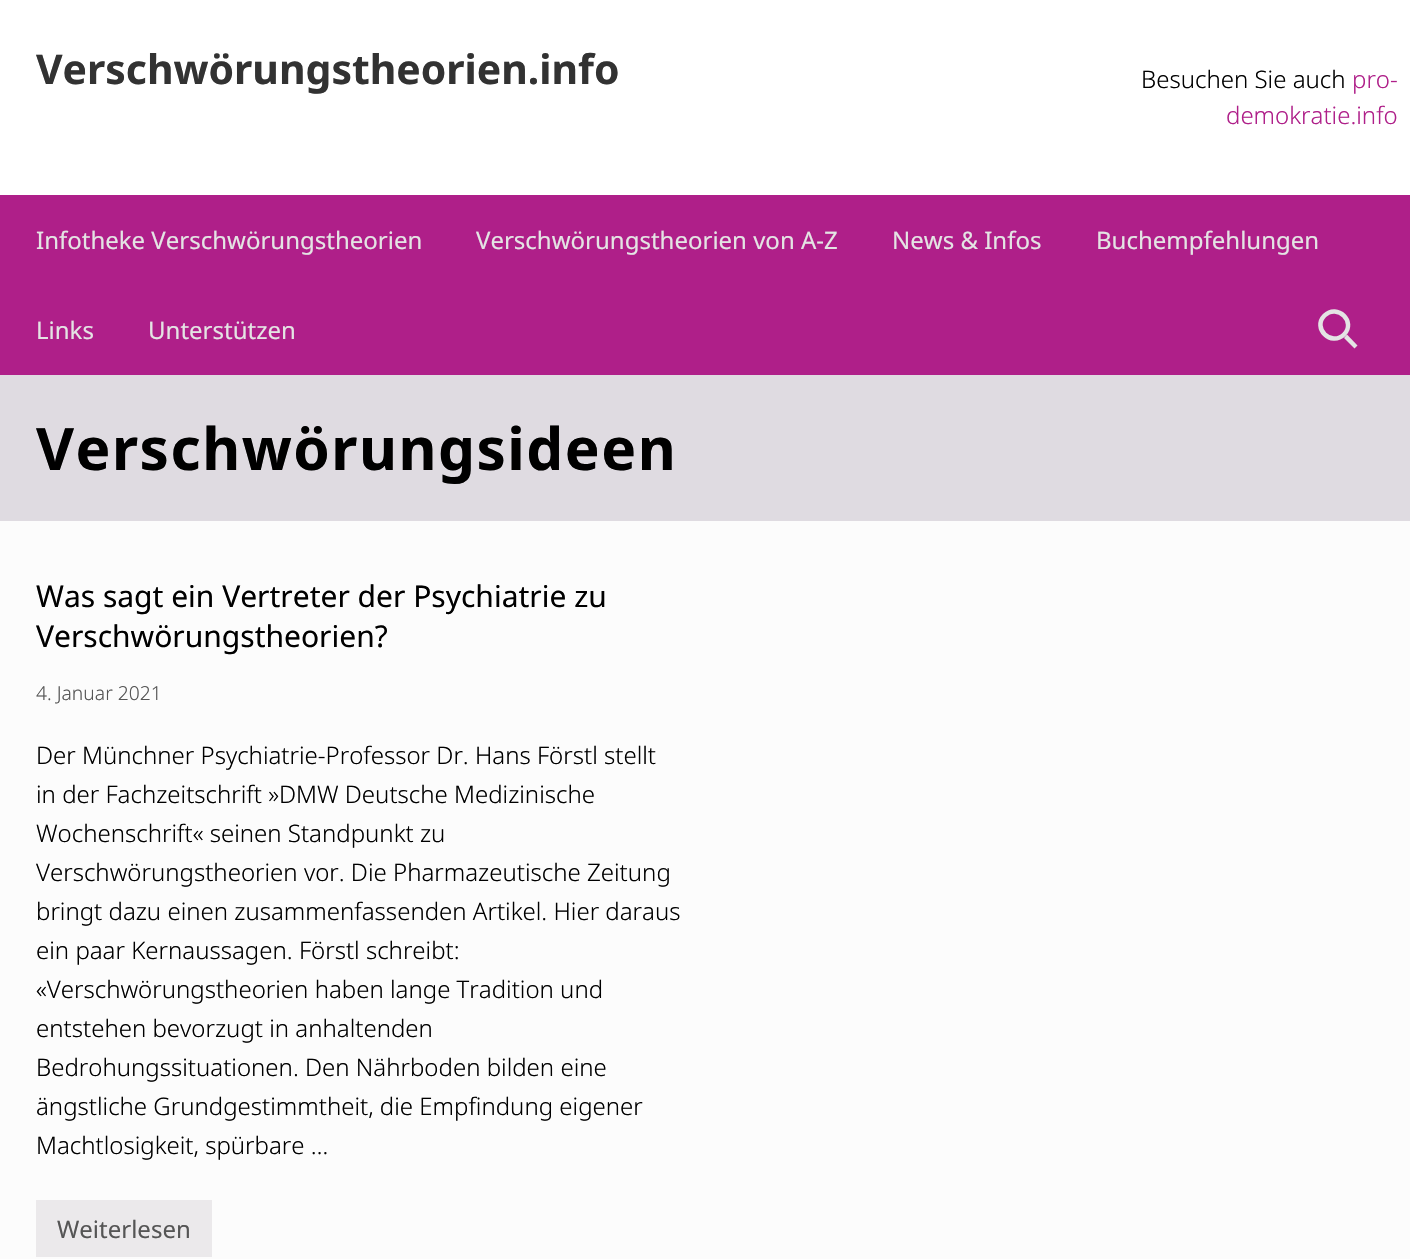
#include "include/core/SkBlurTypes.h"
#include "include/core/SkCanvas.h"
#include "include/core/SkData.h"
#include "include/core/SkFont.h"
#include "include/core/SkFontMgr.h"
#include "include/core/SkImage.h"
#include "include/core/SkMaskFilter.h"
#include "include/core/SkPaint.h"
#include "include/core/SkPathBuilder.h"
#include "include/core/SkTextBlob.h"
#include "include/effects/SkDashPathEffect.h"
#include "include/effects/SkGradientShader.h"
#include "include/utils/SkParsePath.h"

extern sk_sp<SkFontMgr> fontMgr;

void draw(SkCanvas* canvas) {
  SkPaint p;
  p.setAntiAlias(true);
  auto spacedText = [&](const char* s, float x, float y, const SkFont& font, const SkPaint& ink, float letter, float word) {
    std::vector<SkGlyphID> glyphs(font.countText(s, strlen(s), SkTextEncoding::kUTF8));
    std::vector<float> xs(glyphs.size());
    font.textToGlyphs(s, strlen(s), SkTextEncoding::kUTF8, glyphs);
    font.getXPos(glyphs, xs, x);
    float extra = 0;
    for (size_t i = 0; i < glyphs.size(); i++) {
      xs[i] += extra;
      extra += letter + word * (glyphs[i] == font.unicharToGlyph(' '));
    }
    canvas->drawTextBlob(SkTextBlob::MakeFromPosHGlyphs(glyphs, xs, y, font), 0, 0, ink);
  };
  canvas->clear(SkColorSetRGB(252, 252, 252));
  p.setColor(SK_ColorWHITE);
  canvas->drawRect(SkRect::MakeLTRB(0, 0, 1410, 195), p);
  p.setColor(SkColorSetRGB(175, 31, 137));
  canvas->drawRect(SkRect::MakeLTRB(0, 195, 1410, 375), p);
  p.setStyle(SkPaint::kStroke_Style);
  p.setStrokeWidth(4.5f);
  p.setColor(SkColorSetRGB(228, 228, 228));
  canvas->drawPath(SkPathBuilder().moveTo(1324.5f, 315.5f).cubicTo(1337.5f, 303, 1356.5f, 322, 1344, 334.5f).cubicTo(1331, 347, 1312, 328, 1324.5f, 315.5f).close().detach(), p);
  p.setStyle(SkPaint::kFill_Style);
  canvas->drawPath(SkPathBuilder().moveTo(1344, 338).lineTo(1347, 334.5f).lineTo(1357.5f, 345.5f).lineTo(1354.5f, 348.5f).close().detach(), p);
  p.setColor(SkColorSetRGB(223, 219, 225));
  canvas->drawRect(SkRect::MakeLTRB(0, 375, 1410, 521), p);
  p.setColor(SkColorSetRGB(235, 233, 235));
  canvas->drawRect(SkRect::MakeLTRB(36, 1200, 212, 1257), p);
  SkFont font1(fontMgr->matchFamilyStyle("Noto Sans", SkFontStyle::Bold()), 40.9f);
  font1.setSubpixel(true);
  p.setColor(SkColorSetRGB(50, 50, 50));
  canvas->drawString("Verschwörungstheorien.info", 36, 84, font1, p);
  SkFont font2(fontMgr->matchFamilyStyle("Noto Sans", SkFontStyle(300, SkFontStyle::kNormal_Width, SkFontStyle::kUpright_Slant)), 24);
  font2.setSubpixel(true);
  p.setColor(SK_ColorBLACK);
  canvas->drawString("Besuchen Sie auch", 1141, 88, font2, p);
  p.setColor(SkColorSetRGB(175, 31, 137));
  canvas->drawString("pro-", 1352, 88, font2, p);
  canvas->drawString("demokratie.info", 1226, 124, font2, p);
  SkFont font3(fontMgr->matchFamilyStyle("Noto Sans", SkFontStyle::Normal()), 24);
  font3.setSubpixel(true);
  p.setColor(SkColorSetRGB(228, 228, 228));
  canvas->drawString("Infotheke Verschwörungstheorien", 36, 249, font3, p);
  canvas->drawString("Verschwörungstheorien von A-Z", 476, 249, font3, p);
  canvas->drawString("News & Infos", 892, 249, font3, p);
  canvas->drawString("Buchempfehlungen", 1096, 249, font3, p);
  canvas->drawString("Links", 36, 339, font3, p);
  canvas->drawString("Unterstützen", 148, 339, font3, p);
  SkFont font4(fontMgr->matchFamilyStyle("Noto Sans", SkFontStyle::Bold()), 58.5f);
  font4.setSubpixel(true);
  p.setColor(SK_ColorBLACK);
  spacedText("Verschwörungsideen", 36, 470, font4, p, 1.5f, 0);
  SkFont font5(fontMgr->matchFamilyStyle("Noto Sans", SkFontStyle::Normal()), 30);
  font5.setSubpixel(true);
  canvas->drawString("Was sagt ein Vertreter der Psychiatrie zu", 36, 607, font5, p);
  canvas->drawString("Verschwörungstheorien?", 36, 647, font5, p);
  SkFont font6(fontMgr->matchFamilyStyle("Noto Sans", SkFontStyle(300, SkFontStyle::kNormal_Width, SkFontStyle::kUpright_Slant)), 19.25f);
  font6.setSubpixel(true);
  p.setColor(SkColorSetRGB(85, 85, 85));
  canvas->drawString("4. Januar 2021", 36, 700, font6, p);
  p.setColor(SK_ColorBLACK);
  canvas->drawString("Der Münchner Psychiatrie-Professor Dr. Hans Förstl stellt", 36, 764, font2, p);
  canvas->drawString("in der Fachzeitschrift »DMW Deutsche Medizinische", 36, 803, font2, p);
  canvas->drawString("Wochenschrift« seinen Standpunkt zu", 36, 842, font2, p);
  canvas->drawString("Verschwörungstheorien vor. Die Pharmazeutische Zeitung", 36, 881, font2, p);
  canvas->drawString("bringt dazu einen zusammenfassenden Artikel. Hier daraus", 36, 920, font2, p);
  canvas->drawString("ein paar Kernaussagen. Förstl schreibt:", 36, 959, font2, p);
  canvas->drawString("«Verschwörungstheorien haben lange Tradition und", 36, 998, font2, p);
  canvas->drawString("entstehen bevorzugt in anhaltenden", 36, 1037, font2, p);
  canvas->drawString("Bedrohungssituationen. Den Nährboden bilden eine", 36, 1076, font2, p);
  canvas->drawString("ängstliche Grundgestimmtheit, die Empfindung eigener", 36, 1115, font2, p);
  canvas->drawString("Machtlosigkeit, spürbare …", 36, 1154, font2, p);
  p.setColor(SkColorSetRGB(85, 85, 85));
  canvas->drawString("Weiterlesen", 57, 1238, font3, p);
}
